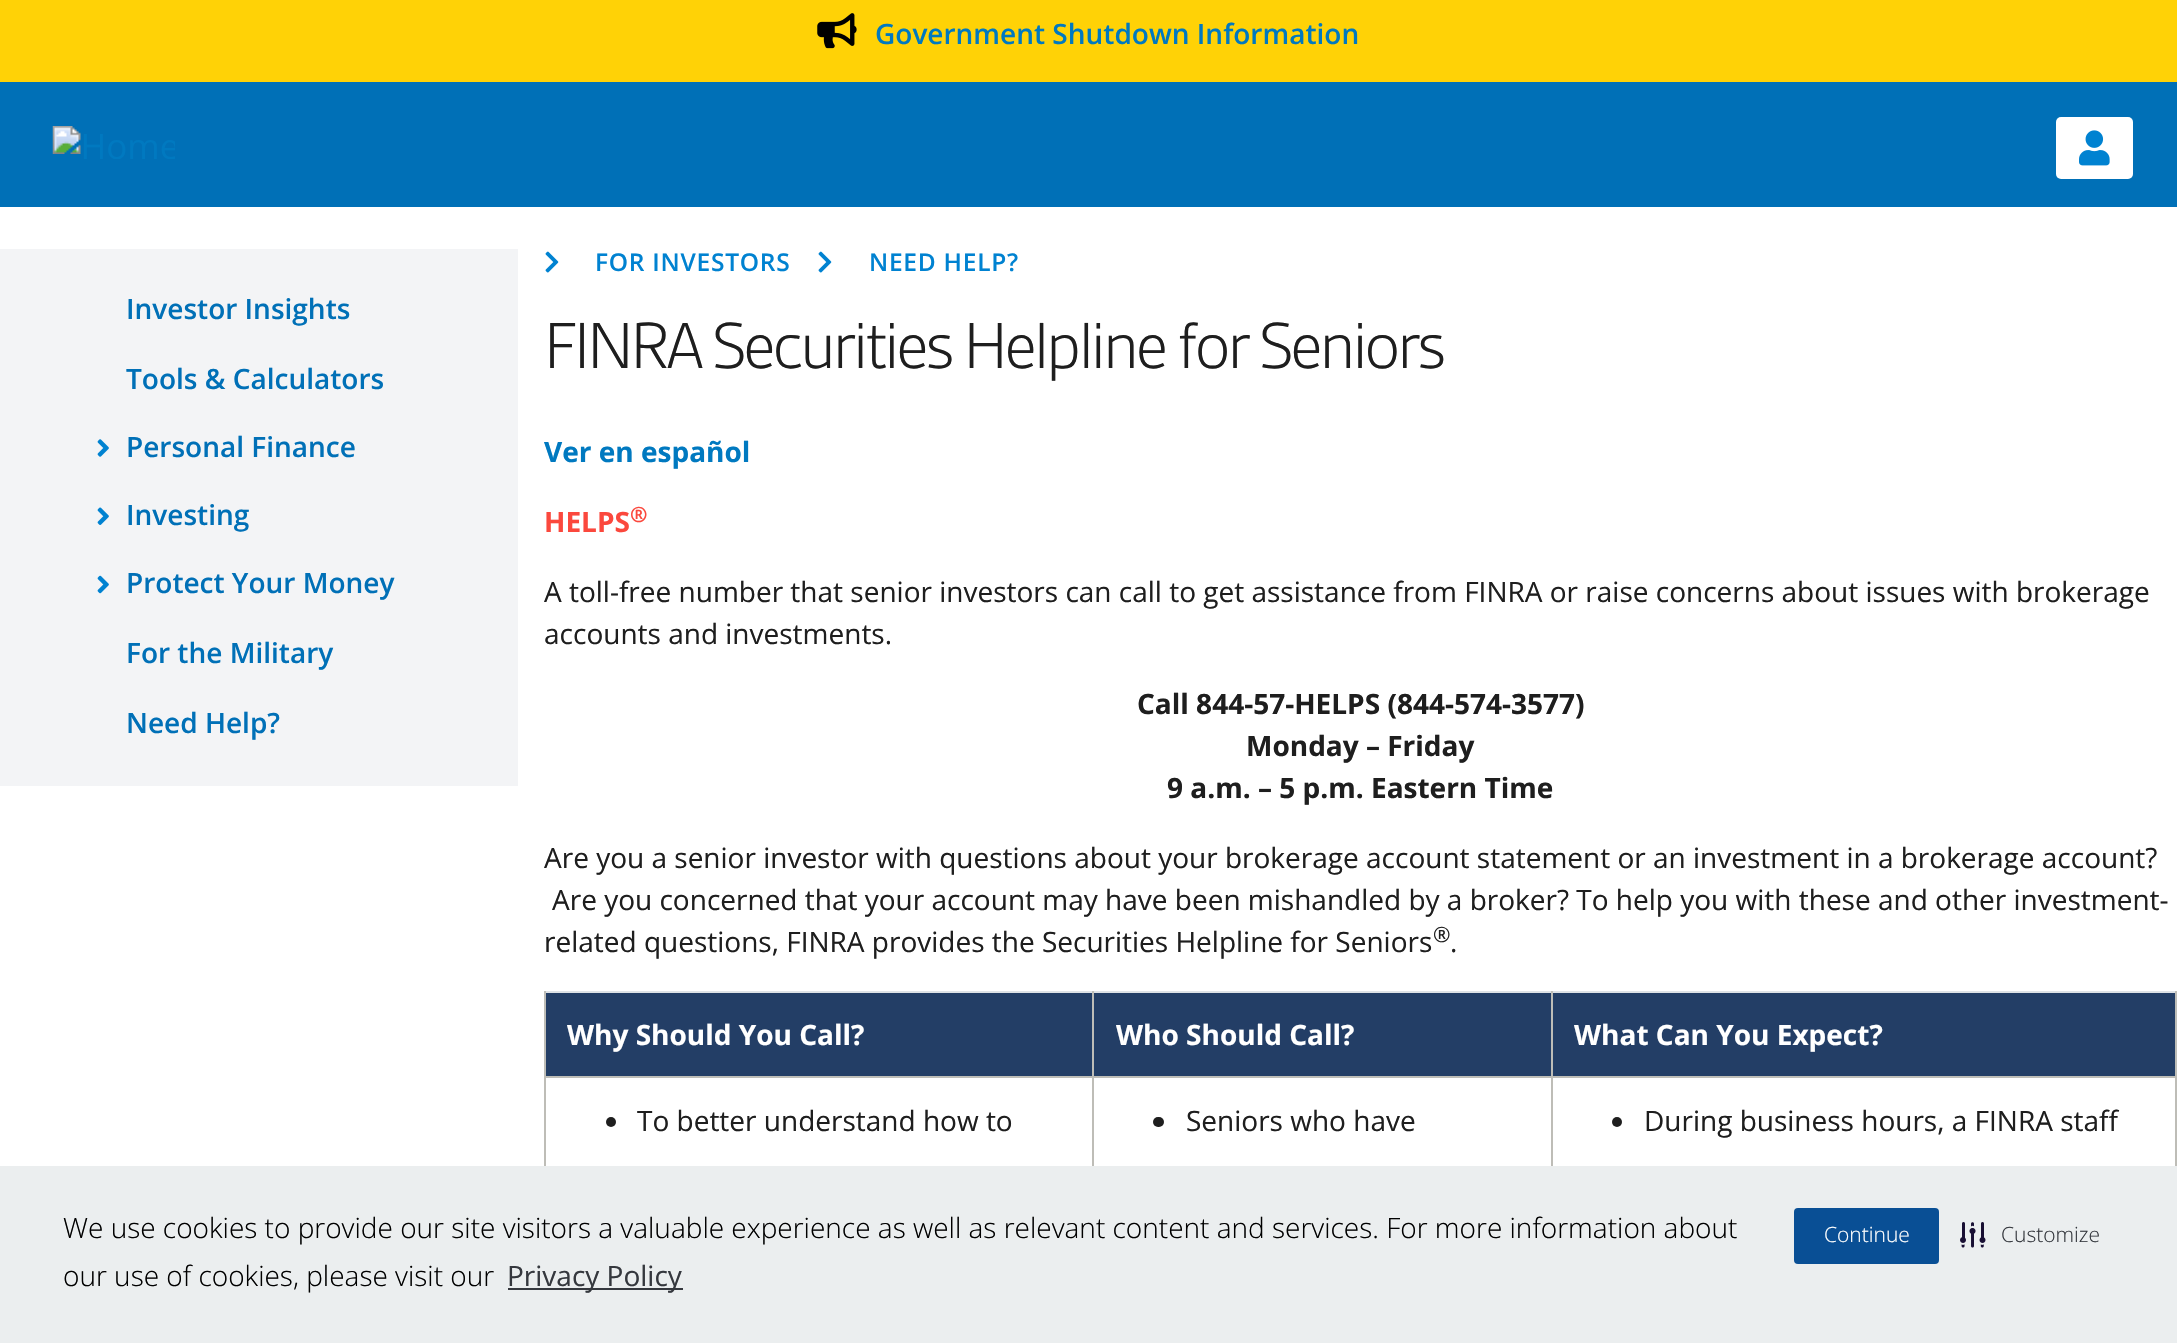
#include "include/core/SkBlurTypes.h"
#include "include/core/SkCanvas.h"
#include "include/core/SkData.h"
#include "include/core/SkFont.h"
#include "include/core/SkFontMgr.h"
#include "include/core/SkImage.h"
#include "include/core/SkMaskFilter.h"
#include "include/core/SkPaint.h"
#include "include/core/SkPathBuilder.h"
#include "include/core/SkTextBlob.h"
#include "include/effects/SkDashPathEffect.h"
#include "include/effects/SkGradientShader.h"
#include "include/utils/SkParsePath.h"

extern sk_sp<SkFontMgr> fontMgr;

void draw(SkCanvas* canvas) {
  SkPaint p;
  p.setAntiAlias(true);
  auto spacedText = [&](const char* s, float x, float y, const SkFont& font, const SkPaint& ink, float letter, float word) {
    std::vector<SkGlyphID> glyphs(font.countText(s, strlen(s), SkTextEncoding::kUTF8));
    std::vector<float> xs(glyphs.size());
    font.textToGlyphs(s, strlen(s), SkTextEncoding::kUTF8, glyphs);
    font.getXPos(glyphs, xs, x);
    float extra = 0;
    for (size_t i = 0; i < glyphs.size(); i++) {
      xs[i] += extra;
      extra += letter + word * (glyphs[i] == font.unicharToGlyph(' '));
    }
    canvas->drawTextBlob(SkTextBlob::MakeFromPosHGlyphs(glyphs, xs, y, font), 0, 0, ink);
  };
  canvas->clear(SK_ColorWHITE);
  p.setColor(SkColorSetRGB(255, 210, 6));
  canvas->drawRect(SkRect::MakeLTRB(0, 0, 2177, 82), p);
  canvas->drawImageRect(SkImages::DeferredFromEncodedData(SkData::MakeFromFileName("images/1.png")), SkRect::MakeLTRB(817, 13, 857, 49), SkSamplingOptions());
  p.setColor(SkColorSetRGB(0, 112, 183));
  canvas->drawRect(SkRect::MakeLTRB(0, 82, 2177, 207), p);
  canvas->drawImageRect(SkImages::DeferredFromEncodedData(SkData::MakeFromFileName("images/2.png")), SkRect::MakeLTRB(52, 126, 175, 159), SkSamplingOptions());
  p.setColor(SK_ColorWHITE);
  canvas->drawRoundRect(SkRect::MakeLTRB(2056, 117, 2133, 179), 5, 5, p);
  canvas->drawImageRect(SkImages::DeferredFromEncodedData(SkData::MakeFromFileName("images/3.png")), SkRect::MakeLTRB(2079, 130, 2110, 166), SkSamplingOptions());
  canvas->drawImageRect(SkImages::DeferredFromEncodedData(SkData::MakeFromFileName("images/4.png")), SkRect::MakeLTRB(545, 251, 559, 273), SkSamplingOptions());
  canvas->drawImageRect(SkImages::DeferredFromEncodedData(SkData::MakeFromFileName("images/4.png")), SkRect::MakeLTRB(818, 251, 832, 273), SkSamplingOptions());
  p.setColor(SkColorSetRGB(243, 244, 246));
  canvas->drawRect(SkRect::MakeLTRB(0, 249, 518, 786), p);
  canvas->drawImageRect(SkImages::DeferredFromEncodedData(SkData::MakeFromFileName("images/5.png")), SkRect::MakeLTRB(97, 439, 109, 457), SkSamplingOptions());
  canvas->drawImageRect(SkImages::DeferredFromEncodedData(SkData::MakeFromFileName("images/6.png")), SkRect::MakeLTRB(97, 507, 109, 525), SkSamplingOptions());
  canvas->drawImageRect(SkImages::DeferredFromEncodedData(SkData::MakeFromFileName("images/7.png")), SkRect::MakeLTRB(97, 575, 109, 594), SkSamplingOptions());
  p.setColor(SkColorSetRGB(35, 62, 102));
  canvas->drawRect(SkRect::MakeLTRB(546, 993, 1092, 1076), p);
  p.setColor(SkColorSetRGB(222, 226, 230));
  canvas->drawRect(SkRect::MakeLTRB(544, 991, 2177, 993), p);
  p.setColor(SkColorSetRGB(190, 189, 183));
  canvas->drawRect(SkRect::MakeLTRB(2175, 1076, 2177, 1166), p);
  canvas->drawRect(SkRect::MakeLTRB(2175, 991, 2177, 1078), p);
  canvas->drawRect(SkRect::MakeLTRB(1551, 1076, 1553, 1166), p);
  canvas->drawRect(SkRect::MakeLTRB(1551, 1076, 2177, 1078), p);
  canvas->drawRect(SkRect::MakeLTRB(1551, 991, 1553, 1078), p);
  canvas->drawRect(SkRect::MakeLTRB(1092, 1076, 1094, 1166), p);
  canvas->drawRect(SkRect::MakeLTRB(1092, 1076, 1552, 1078), p);
  canvas->drawRect(SkRect::MakeLTRB(1092, 991, 1094, 1078), p);
  canvas->drawRect(SkRect::MakeLTRB(544, 1076, 546, 1166), p);
  canvas->drawRect(SkRect::MakeLTRB(544, 1076, 1094, 1078), p);
  canvas->drawRect(SkRect::MakeLTRB(544, 991, 546, 1078), p);
  p.setColor(SkColorSetRGB(35, 62, 102));
  canvas->drawRect(SkRect::MakeLTRB(1094, 993, 1551, 1076), p);
  canvas->drawRect(SkRect::MakeLTRB(1553, 993, 2175, 1076), p);
  p.setColor(SkColorSetRGB(30, 30, 30));
  canvas->drawCircle(611, 1122, 5, p);
  canvas->drawRoundRect(SkRect::MakeLTRB(1153, 1117, 1164, 1127), 5, 5, p);
  canvas->drawCircle(1617, 1122, 5, p);
  p.setColor(SkColorSetRGB(235, 238, 239));
  canvas->drawRect(SkRect::MakeLTRB(0, 1166, 2177, 1343), p);
  p.setColor(SkColorSetRGB(53, 56, 62));
  canvas->drawRect(SkRect::MakeLTRB(508, 1288, 683, 1290), p);
  p.setColor(SkColorSetRGB(9, 79, 149));
  canvas->drawRoundRect(SkRect::MakeLTRB(1794, 1208, 1939, 1264), 4, 4, p);
  canvas->drawImageRect(SkImages::DeferredFromEncodedData(SkData::MakeFromFileName("images/8.png")), SkRect::MakeLTRB(1960, 1222, 1986, 1248), SkSamplingOptions());
  SkFont font1(fontMgr->matchFamilyStyle("Open Sans", SkFontStyle(600, SkFontStyle::kNormal_Width, SkFontStyle::kUpright_Slant)), 28);
  font1.setSubpixel(true);
  p.setColor(SkColorSetRGB(0, 121, 192));
  canvas->drawString("Government Shutdown Information", 875, 44, font1, p);
  SkFont font2(fontMgr->matchFamilyStyle("Open Sans", SkFontStyle(600, SkFontStyle::kNormal_Width, SkFontStyle::kUpright_Slant)), 24.5f);
  font2.setSubpixel(true);
  p.setColor(SkColorSetRGB(0, 130, 209));
  spacedText("FOR INVESTORS", 595, 271, font2, p, 0.75f, 0);
  spacedText("NEED HELP?", 869, 271, font2, p, 0.75f, 0);
  p.setColor(SkColorSetRGB(0, 112, 183));
  canvas->drawString("Investor Insights", 126, 319, font1, p);
  canvas->drawString("Tools & Calculators", 126, 389, font1, p);
  canvas->drawString("Personal Finance", 126, 457, font1, p);
  canvas->drawString("Investing", 126, 525, font1, p);
  canvas->drawString("Protect Your Money", 126, 593, font1, p);
  canvas->drawString("For the Military", 126, 663, font1, p);
  canvas->drawString("Need Help?", 126, 733, font1, p);
  SkFont font3(fontMgr->matchFamilyStyle("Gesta", SkFontStyle(300, SkFontStyle::kNormal_Width, SkFontStyle::kUpright_Slant)), 70);
  font3.setSubpixel(true);
  p.setColor(SkColorSetRGB(30, 30, 30));
  spacedText("FINRA Securities Helpline for Seniors", 544, 368, font3, p, -3, 0);
  SkFont font4(fontMgr->matchFamilyStyle("Open Sans", SkFontStyle::Bold()), 28);
  font4.setSubpixel(true);
  p.setColor(SkColorSetRGB(0, 121, 192));
  canvas->drawString("Ver en español", 544, 462, font4, p);
  p.setColor(SkColorSetRGB(251, 72, 61));
  canvas->drawString("HELPS", 544, 532, font4, p);
  SkFont font5(fontMgr->matchFamilyStyle("Open Sans", SkFontStyle::Bold()), 21);
  font5.setSubpixel(true);
  canvas->drawString("®", 630, 522, font5, p);
  SkFont font6(fontMgr->matchFamilyStyle("Open Sans", SkFontStyle::Normal()), 28);
  font6.setSubpixel(true);
  p.setColor(SkColorSetRGB(30, 30, 30));
  canvas->drawString("A toll-free number that senior investors can call to get assistance from FINRA or raise concerns about issues with brokerage", 544, 602, font6, p);
  canvas->drawString("accounts and investments.", 544, 644, font6, p);
  canvas->drawString("Call 844-57-HELPS (844-574-3577)", 1137, 714, font4, p);
  canvas->drawString("Monday – Friday", 1246, 756, font4, p);
  canvas->drawString("9 a.m. – 5 p.m. Eastern Time", 1167, 798, font4, p);
  canvas->drawString("Are you a senior investor with questions about your brokerage account statement or an investment in a brokerage account?", 544, 868, font6, p);
  canvas->drawString("Are you concerned that your account may have been mishandled by a broker? To help you with these and other investment-", 552, 910, font6, p);
  canvas->drawString("related questions, FINRA provides the Securities Helpline for Seniors", 544, 952, font6, p);
  SkFont font7(fontMgr->matchFamilyStyle("Open Sans", SkFontStyle::Normal()), 21);
  font7.setSubpixel(true);
  canvas->drawString("®", 1433, 942, font7, p);
  canvas->drawString(".", 1450, 952, font6, p);
  p.setColor(SK_ColorWHITE);
  canvas->drawString("Why Should You Call?", 567, 1045, font4, p);
  canvas->drawString("Who Should Call?", 1116, 1045, font4, p);
  canvas->drawString("What Can You Expect?", 1574, 1045, font4, p);
  p.setColor(SkColorSetRGB(30, 30, 30));
  canvas->drawString("To better understand how to", 637, 1131, font6, p);
  canvas->drawString("Seniors who have", 1186, 1131, font6, p);
  canvas->drawString("During business hours, a FINRA staff", 1644, 1131, font6, p);
  SkFont font8(fontMgr->matchFamilyStyle("Open Sans", SkFontStyle(300, SkFontStyle::kNormal_Width, SkFontStyle::kUpright_Slant)), 28);
  font8.setSubpixel(true);
  p.setColor(SK_ColorBLACK);
  canvas->drawString("We use cookies to provide our site visitors a valuable experience as well as relevant content and services. For more information about", 63, 1238, font8, p);
  canvas->drawString("our use of cookies, please visit our", 63, 1286, font8, p);
  p.setColor(SkColorSetRGB(53, 56, 62));
  canvas->drawString("Privacy Policy", 507, 1286, font6, p);
  SkFont font9(fontMgr->matchFamilyStyle("Open Sans", SkFontStyle(300, SkFontStyle::kNormal_Width, SkFontStyle::kUpright_Slant)), 21);
  font9.setSubpixel(true);
  p.setColor(SK_ColorWHITE);
  canvas->drawString("Continue", 1824, 1242, font9, p);
  p.setColor(SkColorSetRGB(53, 56, 62));
  canvas->drawString("Customize", 2001, 1242, font9, p);
}
